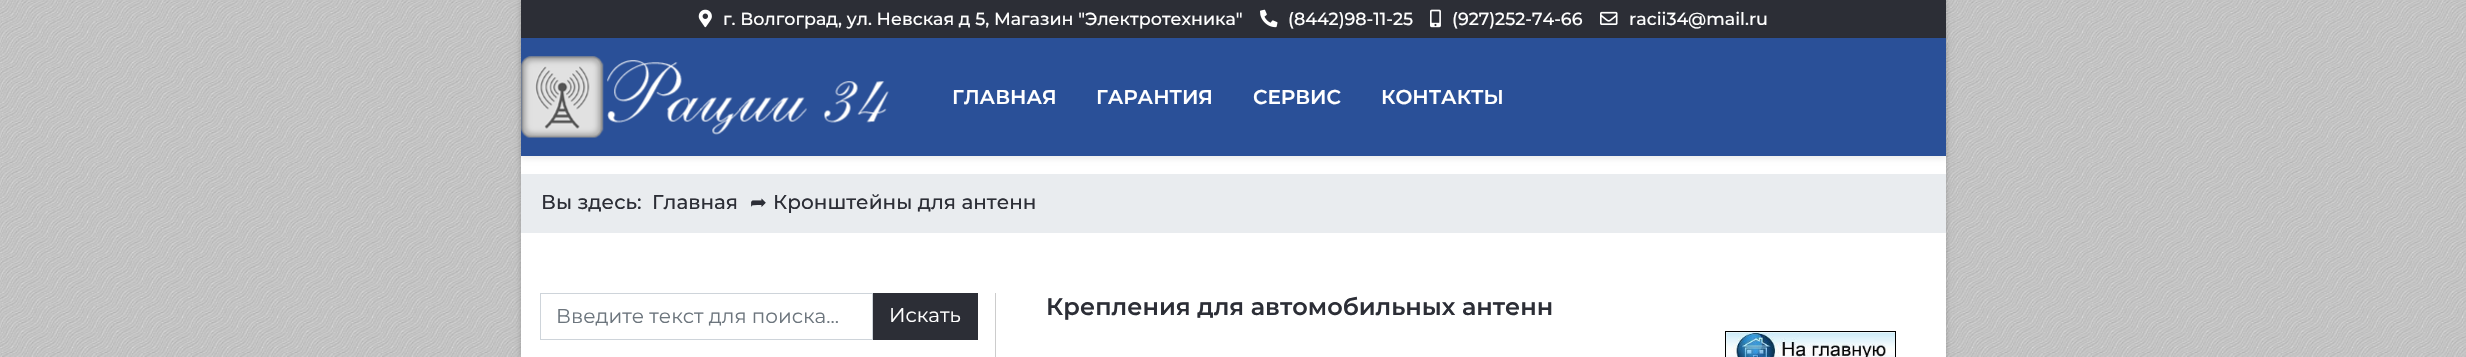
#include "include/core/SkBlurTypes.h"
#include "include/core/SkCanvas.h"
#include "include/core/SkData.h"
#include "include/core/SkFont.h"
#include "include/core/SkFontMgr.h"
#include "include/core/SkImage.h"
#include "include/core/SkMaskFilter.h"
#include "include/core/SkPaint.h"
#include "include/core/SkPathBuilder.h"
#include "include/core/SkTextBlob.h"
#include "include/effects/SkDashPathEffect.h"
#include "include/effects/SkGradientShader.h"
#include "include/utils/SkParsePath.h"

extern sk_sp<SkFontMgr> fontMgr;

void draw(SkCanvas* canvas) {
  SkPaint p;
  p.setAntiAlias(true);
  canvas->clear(SK_ColorWHITE);
  canvas->drawImageRect(SkImages::DeferredFromEncodedData(SkData::MakeFromFileName("images/1.png")), SkRect::MakeLTRB(0, 0, 2466, 357), SkSamplingOptions());
  p.setColor(SkColorSetARGB(51, 0, 0, 0));
  p.setMaskFilter(SkMaskFilter::MakeBlur(kNormal_SkBlurStyle, 3));
  canvas->drawRect(SkRect::MakeLTRB(521, 0, 1946, 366), p);
  p.setMaskFilter(nullptr);
  p.setColor(SK_ColorWHITE);
  canvas->drawRect(SkRect::MakeLTRB(521, 156, 1946, 357), p);
  p.setColor(SkColorSetRGB(44, 46, 54));
  canvas->drawRect(SkRect::MakeLTRB(521, 0, 1946, 38), p);
  canvas->drawImageRect(SkImages::DeferredFromEncodedData(SkData::MakeFromFileName("images/2.png")), SkRect::MakeLTRB(698, 9, 712, 28), SkSamplingOptions());
  canvas->drawImageRect(SkImages::DeferredFromEncodedData(SkData::MakeFromFileName("images/3.png")), SkRect::MakeLTRB(1260, 9, 1278, 28), SkSamplingOptions());
  canvas->drawImageRect(SkImages::DeferredFromEncodedData(SkData::MakeFromFileName("images/4.png")), SkRect::MakeLTRB(1430, 9, 1441, 28), SkSamplingOptions());
  canvas->drawImageRect(SkImages::DeferredFromEncodedData(SkData::MakeFromFileName("images/5.png")), SkRect::MakeLTRB(1600, 11, 1618, 25), SkSamplingOptions());
  p.setColor(SkColorSetARGB(18, 0, 0, 0));
  p.setMaskFilter(SkMaskFilter::MakeBlur(kNormal_SkBlurStyle, 2.5f));
  canvas->drawRect(SkRect::MakeLTRB(521, 40, 1946, 159), p);
  p.setMaskFilter(nullptr);
  p.setColor(SkColorSetRGB(42, 80, 152));
  canvas->drawRect(SkRect::MakeLTRB(521, 38, 1946, 156), p);
  canvas->drawImageRect(SkImages::DeferredFromEncodedData(SkData::MakeFromFileName("images/6.png")), SkRect::MakeLTRB(521, 56, 889, 138), SkSamplingOptions());
  p.setColor(SkColorSetRGB(233, 236, 239));
  canvas->drawRect(SkRect::MakeLTRB(521, 174, 1946, 233), p);
  p.setColor(SkColorSetRGB(204, 204, 204));
  canvas->drawRect(SkRect::MakeLTRB(995, 293, 996, 357), p);
  p.setStyle(SkPaint::kStroke_Style);
  p.setStrokeWidth(1);
  p.setColor(SkColorSetRGB(206, 212, 218));
  canvas->drawRect(SkRect::MakeLTRB(540.5f, 293.5f, 872.5f, 339.5f), p);
  p.setStyle(SkPaint::kFill_Style);
  p.setColor(SkColorSetRGB(44, 46, 54));
  canvas->drawRect(SkRect::MakeLTRB(873, 293, 978, 340), p);
  p.setStyle(SkPaint::kStroke_Style);
  p.setColor(SK_ColorBLACK);
  canvas->drawRect(SkRect::MakeLTRB(1725.5f, 331.5f, 1895.5f, 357.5f), p);
  canvas->drawImageRect(SkImages::DeferredFromEncodedData(SkData::MakeFromFileName("images/7.png")), SkRect::MakeLTRB(1726, 332, 1895, 357), SkSamplingOptions());
  SkFont font1(fontMgr->matchFamilyStyle("Montserrat", SkFontStyle(500, SkFontStyle::kNormal_Width, SkFontStyle::kUpright_Slant)), 17.5f);
  font1.setSubpixel(true);
  p.setStyle(SkPaint::kFill_Style);
  p.setColor(SK_ColorWHITE);
  canvas->drawString("г. Волгоград, ул. Невская д 5, Магазин \"Электротехника\"", 723, 25, font1, p);
  canvas->drawString("(8442)98-11-25", 1288, 25, font1, p);
  canvas->drawString("(927)252-74-66", 1452, 25, font1, p);
  canvas->drawString("racii34@mail.ru", 1629, 25, font1, p);
  SkFont font2(fontMgr->matchFamilyStyle("Montserrat", SkFontStyle(600, SkFontStyle::kNormal_Width, SkFontStyle::kUpright_Slant)), 20);
  font2.setSubpixel(true);
  canvas->drawString("ГЛАВНАЯ", 952, 104, font2, p);
  canvas->drawString("ГАРАНТИЯ", 1096, 104, font2, p);
  canvas->drawString("СЕРВИС", 1253, 104, font2, p);
  canvas->drawString("КОНТАКТЫ", 1381, 104, font2, p);
  SkFont font3(fontMgr->matchFamilyStyle("Montserrat", SkFontStyle(500, SkFontStyle::kNormal_Width, SkFontStyle::kUpright_Slant)), 20);
  font3.setSubpixel(true);
  p.setColor(SkColorSetRGB(44, 46, 54));
  canvas->drawString("Вы здесь:", 541, 209, font3, p);
  canvas->drawString("Главная", 652, 209, font3, p);
  SkFont font4(fontMgr->matchFamilyStyle("DejaVu Sans", SkFontStyle::Normal()), 20);
  font4.setSubpixel(true);
  canvas->drawString("➦", 750, 209, font4, p);
  canvas->drawString("Кронштейны для антенн", 773, 209, font3, p);
  SkFont font5(fontMgr->matchFamilyStyle("Montserrat", SkFontStyle::Normal()), 20);
  font5.setSubpixel(true);
  p.setColor(SkColorSetRGB(108, 117, 125));
  canvas->drawString("Введите текст для поиска...", 556, 323, font5, p);
  p.setColor(SK_ColorWHITE);
  canvas->drawString("Искать", 889, 322, font5, p);
  SkFont font6(fontMgr->matchFamilyStyle("Montserrat", SkFontStyle(600, SkFontStyle::kNormal_Width, SkFontStyle::kUpright_Slant)), 24);
  font6.setSubpixel(true);
  p.setColor(SkColorSetRGB(44, 46, 54));
  canvas->drawString("Крепления для автомобильных антенн", 1046, 315, font6, p);
}
